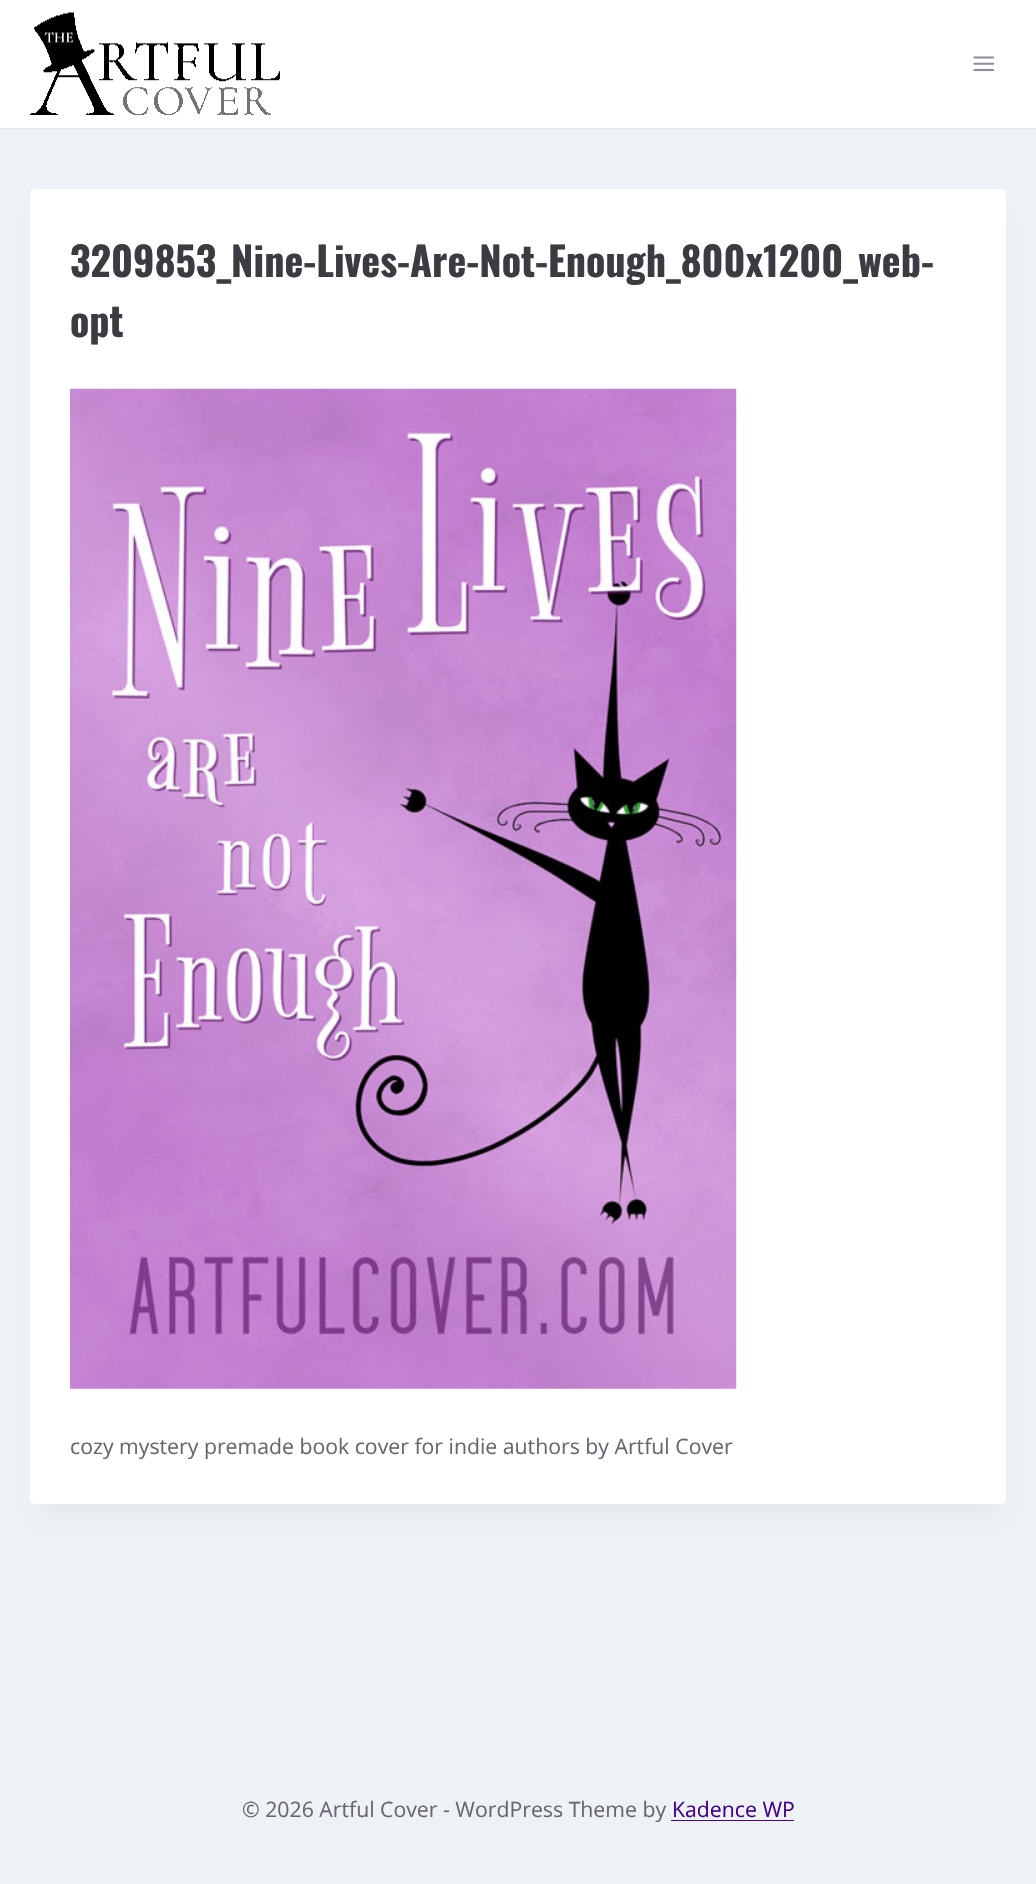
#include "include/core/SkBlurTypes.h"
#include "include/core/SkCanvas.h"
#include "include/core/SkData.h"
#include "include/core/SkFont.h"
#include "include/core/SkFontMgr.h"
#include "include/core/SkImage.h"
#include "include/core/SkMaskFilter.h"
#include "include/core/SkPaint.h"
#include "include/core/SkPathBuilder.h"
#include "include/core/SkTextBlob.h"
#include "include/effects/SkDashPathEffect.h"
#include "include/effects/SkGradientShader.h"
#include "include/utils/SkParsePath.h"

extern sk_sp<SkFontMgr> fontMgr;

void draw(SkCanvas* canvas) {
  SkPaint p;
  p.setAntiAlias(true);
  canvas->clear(SkColorSetRGB(237, 242, 247));
  p.setColor(SK_ColorWHITE);
  canvas->drawRect(SkRect::MakeLTRB(0, 0, 1036, 128), p);
  p.setColor(SkColorSetRGB(234, 226, 241));
  canvas->drawRect(SkRect::MakeLTRB(0, 128, 1036, 129), p);
  canvas->drawImageRect(SkImages::DeferredFromEncodedData(SkData::MakeFromFileName("images/1.png")), SkRect::MakeLTRB(30, 12, 280, 115), SkSamplingOptions());
  canvas->drawImageRect(SkImages::DeferredFromEncodedData(SkData::MakeFromFileName("images/2.png")), SkRect::MakeLTRB(973, 56, 995, 72), SkSamplingOptions());
  p.setColor(SkColorSetARGB(13, 0, 0, 0));
  p.setMaskFilter(SkMaskFilter::MakeBlur(kNormal_SkBlurStyle, 9.5f));
  canvas->drawRect(SkRect::MakeLTRB(43, 220, 994, 1510), p);
  p.setMaskFilter(nullptr);
  p.setColor(SK_ColorWHITE);
  canvas->drawRoundRect(SkRect::MakeLTRB(30, 189, 1006, 1504), 5, 5, p);
  canvas->drawImageRect(SkImages::DeferredFromEncodedData(SkData::MakeFromFileName("images/3.png")), SkRect::MakeLTRB(70, 388, 737, 1389), SkSamplingOptions());
  p.setColor(SkColorSetRGB(71, 0, 137));
  canvas->drawRect(SkRect::MakeLTRB(671, 1820, 794, 1821), p);
  SkFont font1(fontMgr->matchFamilyStyle("Oswald", SkFontStyle::Bold()), 40);
  font1.setSubpixel(true);
  p.setColor(SkColorSetRGB(62, 58, 65));
  canvas->drawString("3209853_Nine-Lives-Are-Not-Enough_800x1200_web-", 70, 277, font1, p);
  canvas->drawString("opt", 70, 337, font1, p);
  SkFont font2(fontMgr->matchFamilyStyle("Open Sans", SkFontStyle::Normal()), 21.25f);
  font2.setSubpixel(true);
  p.setColor(SkColorSetRGB(107, 101, 112));
  canvas->drawString("cozy mystery premade book cover for indie authors by Artful Cover", 70, 1454, font2, p);
  canvas->drawString("© 2026 Artful Cover - WordPress Theme by", 242, 1817, font2, p);
  p.setColor(SkColorSetRGB(71, 0, 137));
  canvas->drawString("Kadence WP", 672, 1817, font2, p);
}
